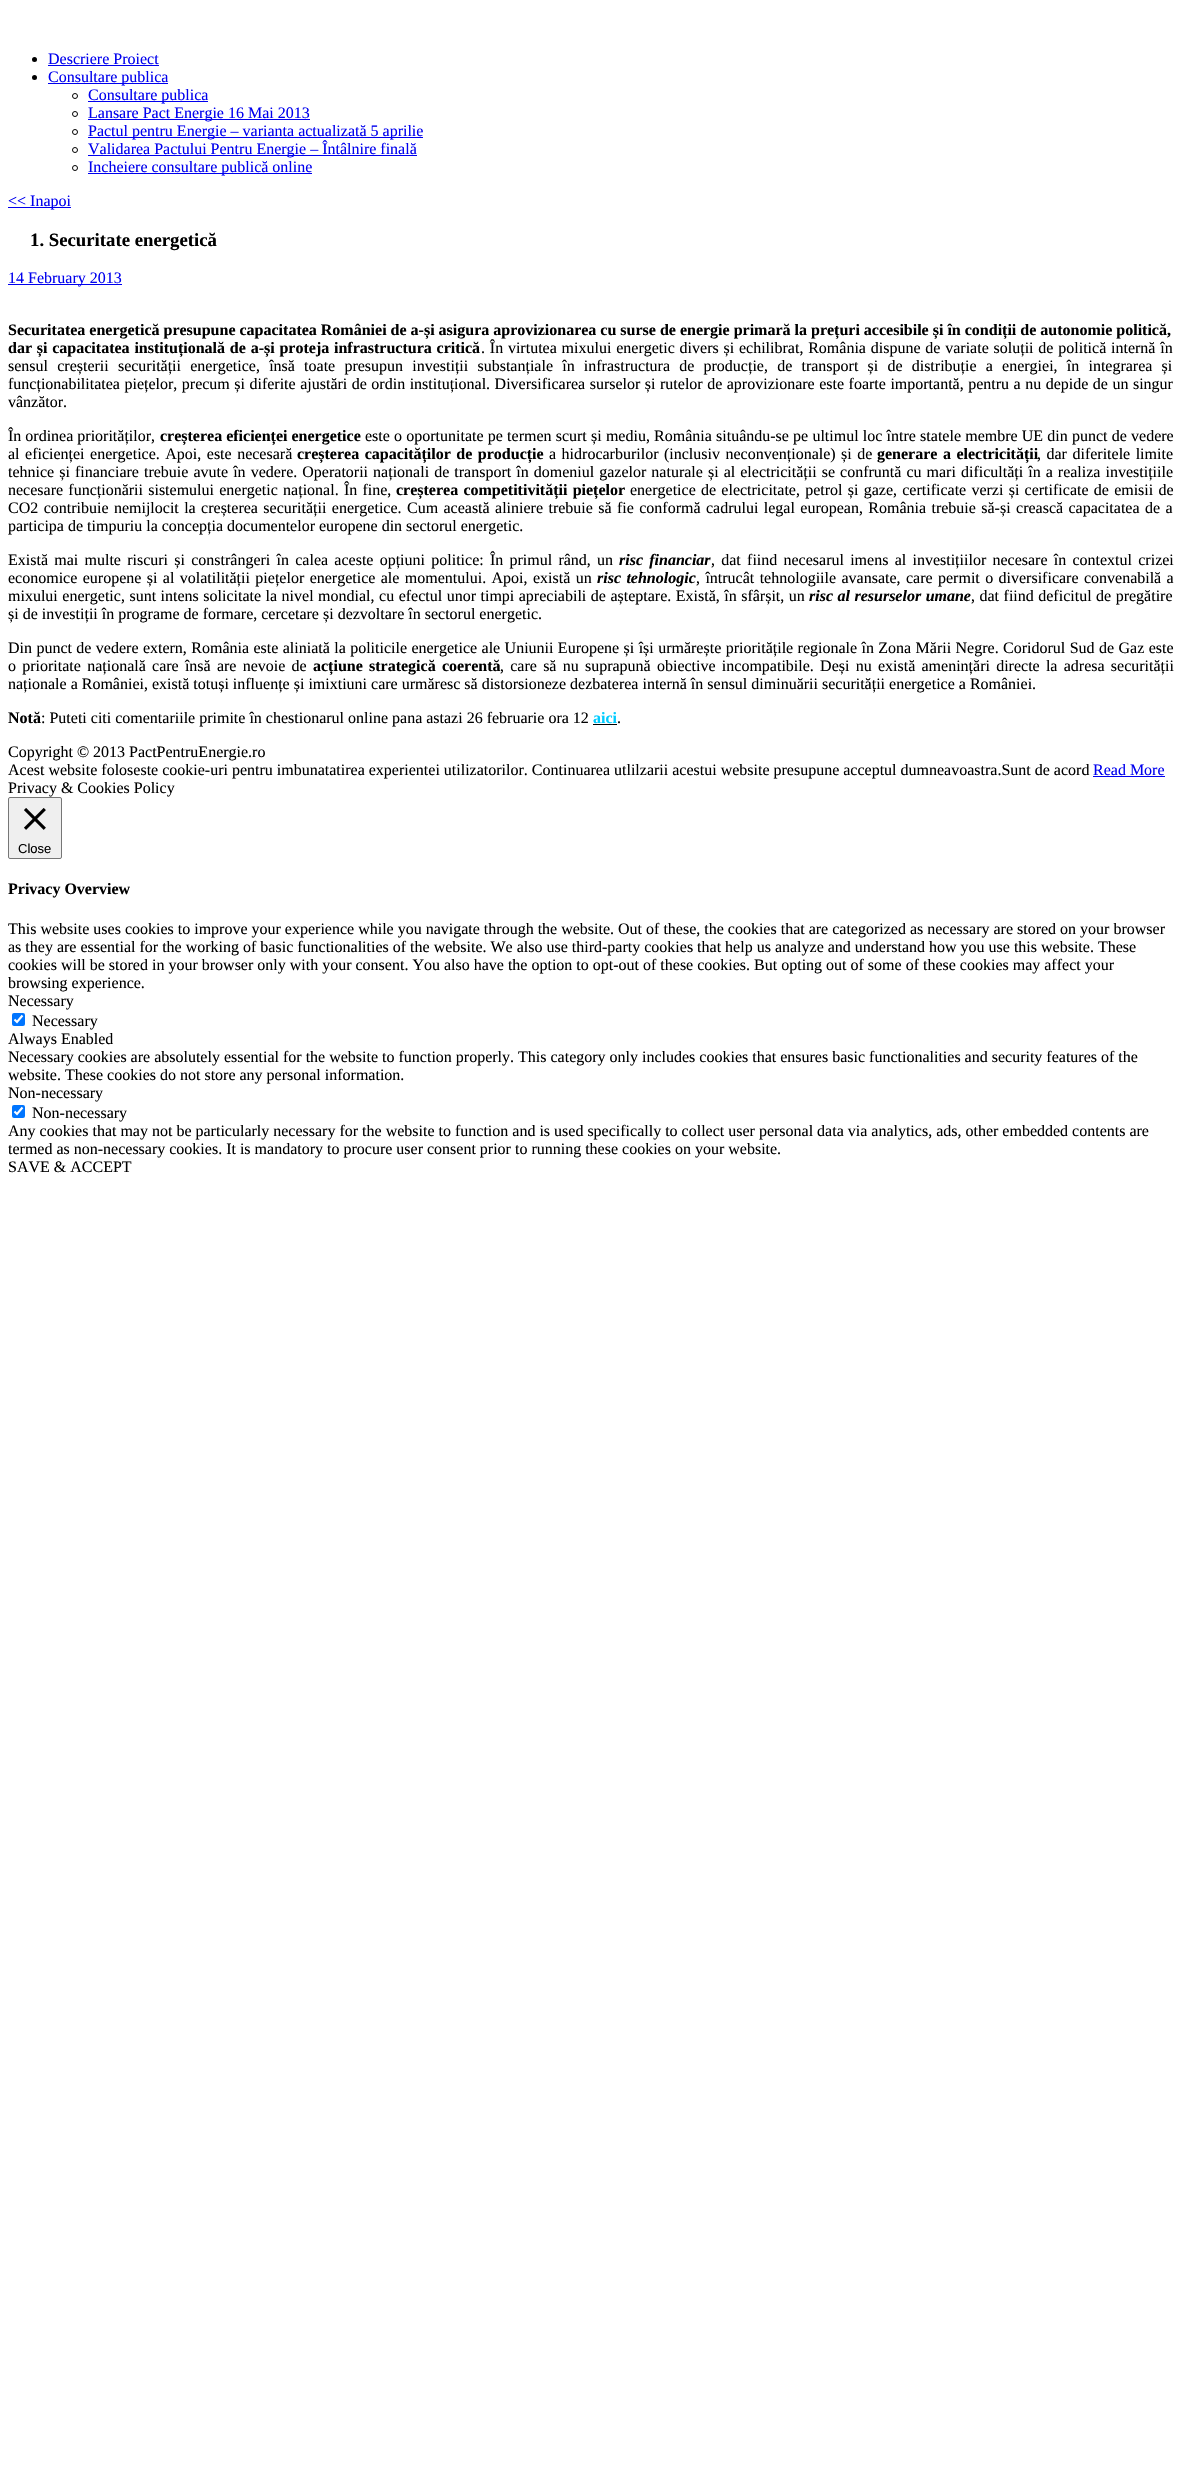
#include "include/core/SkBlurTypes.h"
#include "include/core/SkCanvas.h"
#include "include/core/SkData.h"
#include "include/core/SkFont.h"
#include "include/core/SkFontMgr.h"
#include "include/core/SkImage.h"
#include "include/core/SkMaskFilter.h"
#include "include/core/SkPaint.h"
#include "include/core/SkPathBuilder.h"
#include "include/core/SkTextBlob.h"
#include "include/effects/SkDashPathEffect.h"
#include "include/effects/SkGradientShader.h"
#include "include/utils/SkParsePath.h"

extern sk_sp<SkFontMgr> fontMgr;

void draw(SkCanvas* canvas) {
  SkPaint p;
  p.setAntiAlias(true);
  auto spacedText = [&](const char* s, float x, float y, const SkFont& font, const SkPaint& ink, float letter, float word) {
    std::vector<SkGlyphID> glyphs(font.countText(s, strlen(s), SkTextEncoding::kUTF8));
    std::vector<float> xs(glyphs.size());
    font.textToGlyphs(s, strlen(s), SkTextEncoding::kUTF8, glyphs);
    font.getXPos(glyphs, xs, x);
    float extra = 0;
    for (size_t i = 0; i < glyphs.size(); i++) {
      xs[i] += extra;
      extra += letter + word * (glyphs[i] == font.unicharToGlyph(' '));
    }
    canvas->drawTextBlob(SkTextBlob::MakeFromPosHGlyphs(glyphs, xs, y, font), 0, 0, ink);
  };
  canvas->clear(SK_ColorWHITE);
  p.setColor(SK_ColorBLACK);
  canvas->drawCircle(34.5f, 59.5f, 2.5f, p);
  p.setColor(SkColorSetRGB(0, 0, 238));
  canvas->drawRect(SkRect::MakeLTRB(48, 65, 159, 66), p);
  p.setColor(SK_ColorBLACK);
  canvas->drawCircle(34.5f, 77.5f, 2.5f, p);
  p.setColor(SkColorSetRGB(0, 0, 238));
  canvas->drawRect(SkRect::MakeLTRB(48, 83, 168, 84), p);
  p.setStyle(SkPaint::kStroke_Style);
  p.setStrokeWidth(1);
  p.setColor(SK_ColorBLACK);
  canvas->drawCircle(75, 96, 2.5f, p);
  p.setStyle(SkPaint::kFill_Style);
  p.setColor(SkColorSetRGB(0, 0, 238));
  canvas->drawRect(SkRect::MakeLTRB(88, 101, 208, 102), p);
  p.setStyle(SkPaint::kStroke_Style);
  p.setColor(SK_ColorBLACK);
  canvas->drawCircle(75, 114, 2.5f, p);
  p.setStyle(SkPaint::kFill_Style);
  p.setColor(SkColorSetRGB(0, 0, 238));
  canvas->drawRect(SkRect::MakeLTRB(88, 119, 310, 120), p);
  p.setStyle(SkPaint::kStroke_Style);
  p.setColor(SK_ColorBLACK);
  canvas->drawCircle(75, 132, 2.5f, p);
  p.setStyle(SkPaint::kFill_Style);
  p.setColor(SkColorSetRGB(0, 0, 238));
  canvas->drawRect(SkRect::MakeLTRB(88, 137, 423, 138), p);
  p.setStyle(SkPaint::kStroke_Style);
  p.setColor(SK_ColorBLACK);
  canvas->drawCircle(75, 150, 2.5f, p);
  p.setStyle(SkPaint::kFill_Style);
  p.setColor(SkColorSetRGB(0, 0, 238));
  canvas->drawRect(SkRect::MakeLTRB(88, 155, 417, 156), p);
  p.setStyle(SkPaint::kStroke_Style);
  p.setColor(SK_ColorBLACK);
  canvas->drawCircle(75, 168, 2.5f, p);
  p.setStyle(SkPaint::kFill_Style);
  p.setColor(SkColorSetRGB(0, 0, 238));
  canvas->drawRect(SkRect::MakeLTRB(88, 173, 312, 174), p);
  canvas->drawRect(SkRect::MakeLTRB(8, 207, 71, 208), p);
  canvas->drawRect(SkRect::MakeLTRB(8, 284, 122, 285), p);
  p.setColor(SK_ColorBLACK);
  canvas->drawRect(SkRect::MakeLTRB(593, 724, 617, 725), p);
  p.setColor(SkColorSetRGB(0, 0, 238));
  canvas->drawRect(SkRect::MakeLTRB(1093, 776, 1165, 777), p);
  p.setColor(SkColorSetRGB(239, 239, 239));
  canvas->drawRoundRect(SkRect::MakeLTRB(8.5f, 797.5f, 61.5f, 858.5f), 1.5f, 1.5f, p);
  p.setStyle(SkPaint::kStroke_Style);
  p.setColor(SkColorSetRGB(118, 118, 118));
  canvas->drawRoundRect(SkRect::MakeLTRB(8.5f, 797.5f, 61.5f, 858.5f), 1.5f, 1.5f, p);
  canvas->drawImageRect(SkImages::DeferredFromEncodedData(SkData::MakeFromFileName("images/1.png")), SkRect::MakeLTRB(24, 808, 46, 830), SkSamplingOptions());
  p.setStyle(SkPaint::kFill_Style);
  p.setColor(SkColorSetRGB(0, 117, 255));
  canvas->drawRoundRect(SkRect::MakeLTRB(12, 1013, 25, 1026), 2, 2, p);
  p.setStyle(SkPaint::kStroke_Style);
  p.setStrokeWidth(2.1f);
  p.setColor(SK_ColorWHITE);
  canvas->drawPath(SkPathBuilder().moveTo(14.5f, 1019.5f).lineTo(17, 1022).lineTo(22.5f, 1015.5f).detach(), p);
  p.setStyle(SkPaint::kFill_Style);
  p.setColor(SkColorSetRGB(0, 117, 255));
  canvas->drawRoundRect(SkRect::MakeLTRB(12, 1105, 25, 1118), 2, 2, p);
  p.setStyle(SkPaint::kStroke_Style);
  p.setColor(SK_ColorWHITE);
  canvas->drawPath(SkPathBuilder().moveTo(14.5f, 1111.5f).lineTo(17, 1114).lineTo(22.5f, 1107.5f).detach(), p);
  SkFont font1(fontMgr->matchFamilyStyle("Liberation Serif", SkFontStyle::Normal()), 16);
  font1.setSubpixel(true);
  p.setStyle(SkPaint::kFill_Style);
  p.setColor(SkColorSetRGB(0, 0, 238));
  canvas->drawString("Descriere Proiect", 48, 64, font1, p);
  canvas->drawString("Consultare publica", 48, 82, font1, p);
  canvas->drawString("Consultare publica", 88, 100, font1, p);
  canvas->drawString("Lansare Pact Energie 16 Mai 2013", 88, 118, font1, p);
  canvas->drawString("Pactul pentru Energie – varianta actualizată 5 aprilie", 88, 136, font1, p);
  canvas->drawString("Validarea Pactului Pentru Energie – Întâlnire finală", 88, 154, font1, p);
  canvas->drawString("Incheiere consultare publică online", 88, 172, font1, p);
  canvas->drawString("<< Inapoi", 8, 206, font1, p);
  SkFont font2(fontMgr->matchFamilyStyle("Liberation Serif", SkFontStyle::Bold()), 18.75f);
  font2.setSubpixel(true);
  p.setColor(SK_ColorBLACK);
  canvas->drawString("1. Securitate energetică", 30, 246, font2, p);
  p.setColor(SkColorSetRGB(0, 0, 238));
  canvas->drawString("14 February 2013", 8, 283, font1, p);
  SkFont font3(fontMgr->matchFamilyStyle("Liberation Serif", SkFontStyle::Bold()), 16);
  font3.setSubpixel(true);
  p.setColor(SK_ColorBLACK);
  canvas->drawString("Securitatea energetică presupune capacitatea României de a-și asigura aprovizionarea cu surse de energie primară la prețuri accesibile și în condiții de autonomie politică,", 8, 335, font3, p);
  spacedText("dar și capacitatea instituțională de a-și proteja infrastructura critică", 8, 353, font3, p, 0, 0.8f);
  spacedText(". În virtutea mixului energetic divers și echilibrat, România dispune de variate soluții de politică internă în", 481, 353, font1, p, 0, 0.8f);
  spacedText("sensul creșterii securității energetice, însă toate presupun investiții substanțiale în infrastructura de producție, de transport și de distribuție a energiei, în integrarea și", 8, 371, font1, p, 0, 5.2f);
  spacedText("funcționabilitatea piețelor, precum și diferite ajustări de ordin instituțional. Diversificarea surselor și rutelor de aprovizionare este foarte importantă, pentru a nu depide de un singur", 8, 389, font1, p, 0, 0.5f);
  canvas->drawString("vânzător.", 8, 407, font1, p);
  canvas->drawString("În ordinea priorităților,", 8, 441, font1, p);
  canvas->drawString("creșterea eficienței energetice", 160, 441, font3, p);
  spacedText("este o oportunitate pe termen scurt și mediu, România situându-se pe ultimul loc între statele membre UE din punct de vedere", 365, 441, font1, p, 0, 0.2f);
  spacedText("al eficienței energetice. Apoi, este necesară", 8, 459, font1, p, 0, 1.5f);
  spacedText("creșterea capacităților de producție", 297, 459, font3, p, 0, 1.5f);
  spacedText("a hidrocarburilor (inclusiv neconvenționale) și de", 549, 459, font1, p, 0, 1.5f);
  spacedText("generare a electricității", 877, 459, font3, p, 0, 1.5f);
  spacedText(", dar diferitele limite", 1037, 459, font1, p, 0, 1.5f);
  spacedText("tehnice și financiare trebuie avute în vedere. Operatorii naționali de transport în domeniul gazelor naturale și al electricității se confruntă cu mari dificultăți în a realiza investițiile", 8, 477, font1, p, 0, 1.05f);
  spacedText("necesare funcționării sistemului energetic național. În fine,", 8, 495, font1, p, 0, 1.25f);
  spacedText("creșterea competitivității piețelor", 396, 495, font3, p, 0, 1.25f);
  spacedText("energetice de electricitate, petrol și gaze, certificate verzi și certificate de emisii de", 630, 495, font1, p, 0, 1.25f);
  spacedText("CO2 contribuie nemijlocit la creșterea securității energetice. Cum această aliniere trebuie să fie conformă cadrului legal european, România trebuie să-și crească capacitatea de a", 8, 513, font1, p, 0, 1.4f);
  canvas->drawString("participa de timpuriu la concepția documentelor europene din sectorul energetic.", 8, 531, font1, p);
  spacedText("Există mai multe riscuri și constrângeri în calea aceste opțiuni politice: În primul rând, un", 8, 565, font1, p, 0, 2.25f);
  SkFont font4(fontMgr->matchFamilyStyle("Liberation Serif", SkFontStyle::BoldItalic()), 16);
  font4.setSubpixel(true);
  spacedText("risc financiar", 619, 565, font4, p, 0, 2.25f);
  spacedText(", dat fiind necesarul imens al investițiilor necesare în contextul crizei", 711, 565, font1, p, 0, 2.25f);
  spacedText("economice europene și al volatilității piețelor energetice ale momentului. Apoi, există un", 8, 583, font1, p, 0, 1.4f);
  spacedText("risc tehnologic", 597, 583, font4, p, 0, 1.4f);
  spacedText(", întrucât tehnologiile avansate, care permit o diversificare convenabilă a", 696, 583, font1, p, 0, 1.4f);
  spacedText("mixului energetic, sunt intens solicitate la nivel mondial, cu efectul unor timpi apreciabili de așteptare. Există, în sfârșit, un", 8, 601, font1, p, 0, 0.5f);
  spacedText("risc al resurselor umane", 809, 601, font4, p, 0, 0.5f);
  spacedText(", dat fiind deficitul de pregătire", 971, 601, font1, p, 0, 0.5f);
  canvas->drawString("și de investiții în programe de formare, cercetare și dezvoltare în sectorul energetic.", 8, 619, font1, p);
  spacedText("Din punct de vedere extern, România este aliniată la politicile energetice ale Uniunii Europene și își urmărește prioritățile regionale în Zona Mării Negre. Coridorul Sud de Gaz este", 8, 653, font1, p, 0, 0.4f);
  spacedText("o prioritate națională care însă are nevoie de", 8, 671, font1, p, 0, 2.25f);
  spacedText("acțiune strategică coerentă", 313, 671, font3, p, 0, 2.25f);
  spacedText(", care să nu suprapună obiective incompatibile. Deși nu există amenințări directe la adresa securității", 500, 671, font1, p, 0, 2.25f);
  canvas->drawString("naționale a României, există totuși influențe și imixtiuni care urmăresc să distorsioneze dezbaterea internă în sensul diminuării securității energetice a României.", 8, 689, font1, p);
  canvas->drawString("Notă", 8, 723, font3, p);
  canvas->drawString(": Puteti citi comentariile primite în chestionarul online pana astazi 26 februarie ora 12", 41, 723, font1, p);
  p.setColor(SkColorSetRGB(0, 204, 255));
  canvas->drawString("aici", 593, 723, font3, p);
  p.setColor(SK_ColorBLACK);
  canvas->drawString(".", 617, 723, font1, p);
  canvas->drawString("Copyright © 2013 PactPentruEnergie.ro", 8, 757, font1, p);
  canvas->drawString("Acest website foloseste cookie-uri pentru imbunatatirea experientei utilizatorilor. Continuarea utlilzarii acestui website presupune acceptul dumneavoastra.Sunt de acord", 8, 775, font1, p);
  p.setColor(SkColorSetRGB(0, 0, 238));
  canvas->drawString("Read More", 1093, 775, font1, p);
  p.setColor(SK_ColorBLACK);
  canvas->drawString("Privacy & Cookies Policy", 8, 793, font1, p);
  SkFont font5(fontMgr->matchFamilyStyle("Liberation Sans", SkFontStyle::Normal()), 13);
  font5.setSubpixel(true);
  canvas->drawString("Close", 18, 853, font5, p);
  canvas->drawString("Privacy Overview", 8, 894, font3, p);
  canvas->drawString("This website uses cookies to improve your experience while you navigate through the website. Out of these, the cookies that are categorized as necessary are stored on your browser", 8, 934, font1, p);
  canvas->drawString("as they are essential for the working of basic functionalities of the website. We also use third-party cookies that help us analyze and understand how you use this website. These", 8, 952, font1, p);
  canvas->drawString("cookies will be stored in your browser only with your consent. You also have the option to opt-out of these cookies. But opting out of some of these cookies may affect your", 8, 970, font1, p);
  canvas->drawString("browsing experience.", 8, 988, font1, p);
  canvas->drawString("Necessary", 8, 1006, font1, p);
  canvas->drawString("Necessary", 32, 1026, font1, p);
  canvas->drawString("Always Enabled", 8, 1044, font1, p);
  canvas->drawString("Necessary cookies are absolutely essential for the website to function properly. This category only includes cookies that ensures basic functionalities and security features of the", 8, 1062, font1, p);
  canvas->drawString("website. These cookies do not store any personal information.", 8, 1080, font1, p);
  canvas->drawString("Non-necessary", 8, 1098, font1, p);
  canvas->drawString("Non-necessary", 32, 1118, font1, p);
  canvas->drawString("Any cookies that may not be particularly necessary for the website to function and is used specifically to collect user personal data via analytics, ads, other embedded contents are", 8, 1136, font1, p);
  canvas->drawString("termed as non-necessary cookies. It is mandatory to procure user consent prior to running these cookies on your website.", 8, 1154, font1, p);
  canvas->drawString("SAVE & ACCEPT", 8, 1172, font1, p);
}
